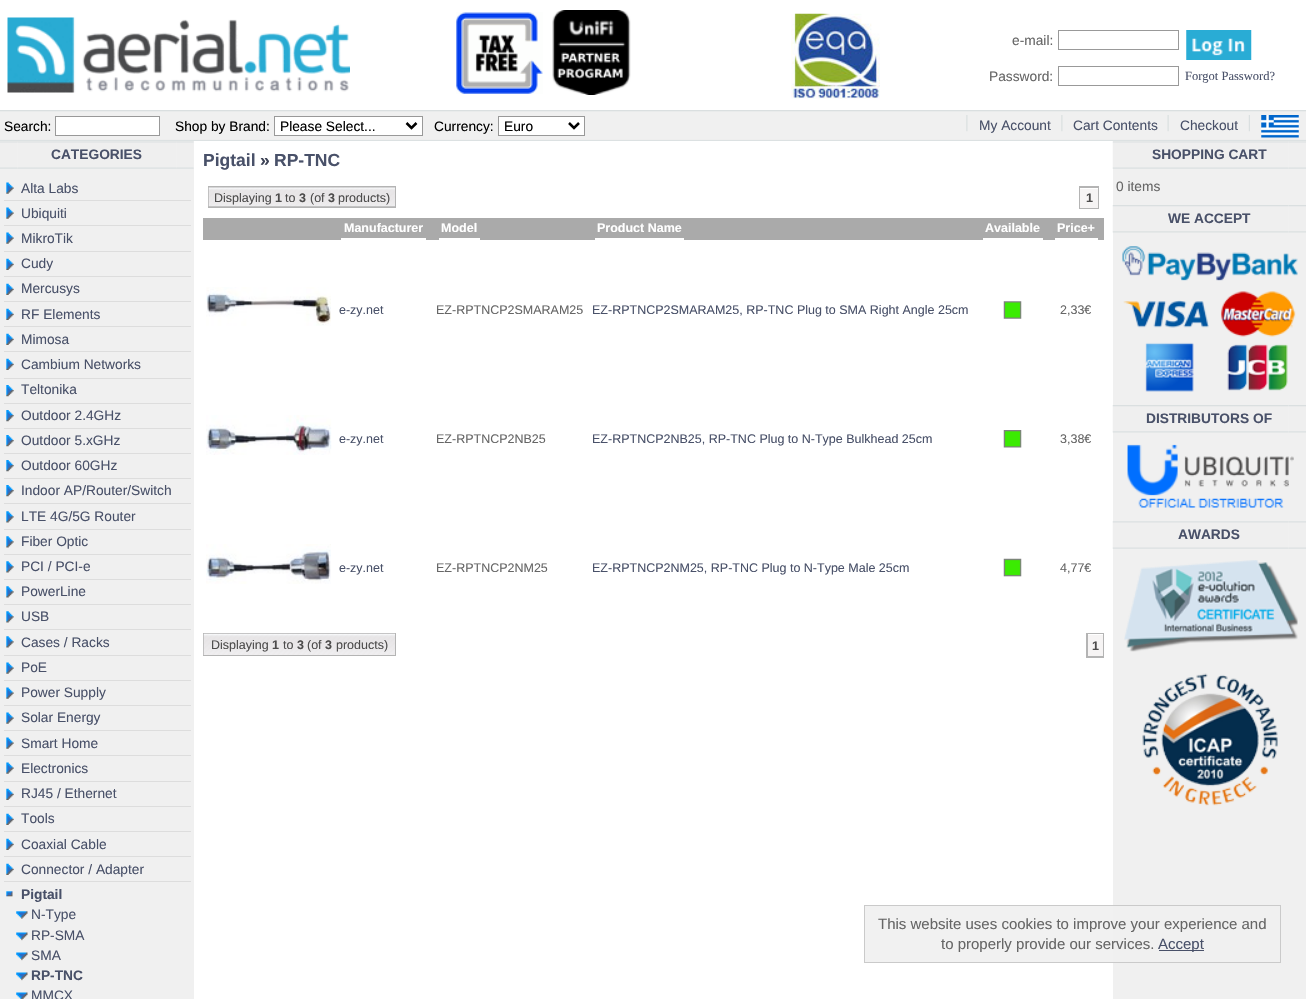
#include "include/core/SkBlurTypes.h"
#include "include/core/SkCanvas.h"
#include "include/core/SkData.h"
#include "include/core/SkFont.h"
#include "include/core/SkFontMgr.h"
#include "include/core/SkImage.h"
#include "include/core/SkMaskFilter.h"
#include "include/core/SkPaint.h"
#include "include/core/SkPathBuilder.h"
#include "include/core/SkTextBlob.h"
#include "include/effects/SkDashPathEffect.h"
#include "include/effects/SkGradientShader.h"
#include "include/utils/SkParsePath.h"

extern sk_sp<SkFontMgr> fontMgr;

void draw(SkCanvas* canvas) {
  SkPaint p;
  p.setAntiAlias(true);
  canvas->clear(SK_ColorWHITE);
  canvas->drawImageRect(SkImages::DeferredFromEncodedData(SkData::MakeFromFileName("images/1.png")), SkRect::MakeLTRB(7, 17, 350, 93), SkSamplingOptions());
  canvas->drawImageRect(SkImages::DeferredFromEncodedData(SkData::MakeFromFileName("images/2.png")), SkRect::MakeLTRB(456, 12, 543, 94), SkSamplingOptions());
  canvas->drawImageRect(SkImages::DeferredFromEncodedData(SkData::MakeFromFileName("images/3.png")), SkRect::MakeLTRB(552, 10, 631, 95), SkSamplingOptions());
  canvas->drawImageRect(SkImages::DeferredFromEncodedData(SkData::MakeFromFileName("images/4.png")), SkRect::MakeLTRB(791, 13, 880, 99), SkSamplingOptions());
  p.setStyle(SkPaint::kStroke_Style);
  p.setStrokeWidth(1);
  p.setColor(SkColorSetRGB(153, 153, 153));
  canvas->drawRect(SkRect::MakeLTRB(1058.5f, 30.5f, 1178.5f, 49.5f), p);
  canvas->drawImageRect(SkImages::DeferredFromEncodedData(SkData::MakeFromFileName("images/5.png")), SkRect::MakeLTRB(1186, 30, 1252, 60), SkSamplingOptions());
  canvas->drawRect(SkRect::MakeLTRB(1058.5f, 66.5f, 1178.5f, 85.5f), p);
  canvas->drawImageRect(SkImages::DeferredFromEncodedData(SkData::MakeFromFileName("images/6.png")), SkRect::MakeLTRB(0, 110, 1306, 141), SkSamplingOptions());
  p.setStyle(SkPaint::kFill_Style);
  p.setColor(SK_ColorWHITE);
  canvas->drawRect(SkRect::MakeLTRB(55.5f, 116.5f, 159.5f, 135.5f), p);
  p.setStyle(SkPaint::kStroke_Style);
  p.setColor(SkColorSetRGB(153, 153, 153));
  canvas->drawRect(SkRect::MakeLTRB(55.5f, 116.5f, 159.5f, 135.5f), p);
  p.setStyle(SkPaint::kFill_Style);
  p.setColor(SK_ColorWHITE);
  canvas->drawRect(SkRect::MakeLTRB(274.5f, 116.5f, 422.5f, 135.5f), p);
  p.setStyle(SkPaint::kStroke_Style);
  p.setColor(SkColorSetRGB(153, 153, 153));
  canvas->drawRect(SkRect::MakeLTRB(274.5f, 116.5f, 422.5f, 135.5f), p);
  p.setStrokeWidth(2.5f);
  p.setColor(SK_ColorBLACK);
  canvas->drawPath(SkPathBuilder().moveTo(406.5f, 123).lineTo(411.5f, 128).lineTo(416.5f, 123).detach(), p);
  p.setStyle(SkPaint::kFill_Style);
  p.setColor(SK_ColorWHITE);
  canvas->drawRect(SkRect::MakeLTRB(498.5f, 116.5f, 584.5f, 135.5f), p);
  p.setStyle(SkPaint::kStroke_Style);
  p.setStrokeWidth(1);
  p.setColor(SkColorSetRGB(153, 153, 153));
  canvas->drawRect(SkRect::MakeLTRB(498.5f, 116.5f, 584.5f, 135.5f), p);
  p.setStrokeWidth(2.5f);
  p.setColor(SK_ColorBLACK);
  canvas->drawPath(SkPathBuilder().moveTo(569, 123).lineTo(574, 128).lineTo(579, 123).detach(), p);
  canvas->drawImageRect(SkImages::DeferredFromEncodedData(SkData::MakeFromFileName("images/7.png")), SkRect::MakeLTRB(966, 115, 968, 132), SkSamplingOptions());
  canvas->drawImageRect(SkImages::DeferredFromEncodedData(SkData::MakeFromFileName("images/7.png")), SkRect::MakeLTRB(1061, 115, 1063, 132), SkSamplingOptions());
  canvas->drawImageRect(SkImages::DeferredFromEncodedData(SkData::MakeFromFileName("images/8.png")), SkRect::MakeLTRB(1167, 115, 1169, 132), SkSamplingOptions());
  canvas->drawImageRect(SkImages::DeferredFromEncodedData(SkData::MakeFromFileName("images/9.png")), SkRect::MakeLTRB(1248, 115, 1250, 132), SkSamplingOptions());
  canvas->drawImageRect(SkImages::DeferredFromEncodedData(SkData::MakeFromFileName("images/10.png")), SkRect::MakeLTRB(1261, 115, 1299, 138), SkSamplingOptions());
  p.setStyle(SkPaint::kFill_Style);
  p.setColor(SkColorSetRGB(240, 240, 240));
  canvas->drawRect(SkRect::MakeLTRB(0, 141, 194, 999), p);
  p.setColor(SkColorSetRGB(241, 241, 241));
  canvas->drawRect(SkRect::MakeLTRB(865, 906, 1113, 962), p);
  p.setColor(SkColorSetRGB(240, 240, 240));
  canvas->drawRect(SkRect::MakeLTRB(1113, 141, 1306, 999), p);
  canvas->drawImageRect(SkImages::DeferredFromEncodedData(SkData::MakeFromFileName("images/11.png")), SkRect::MakeLTRB(0, 141, 18, 169), SkSamplingOptions());
  canvas->drawImageRect(SkImages::DeferredFromEncodedData(SkData::MakeFromFileName("images/12.png")), SkRect::MakeLTRB(17, 141, 177, 169), SkSamplingOptions());
  canvas->drawImageRect(SkImages::DeferredFromEncodedData(SkData::MakeFromFileName("images/13.png")), SkRect::MakeLTRB(176, 141, 194, 169), SkSamplingOptions());
  canvas->drawImageRect(SkImages::DeferredFromEncodedData(SkData::MakeFromFileName("images/14.png")), SkRect::MakeLTRB(6, 182, 14, 194), SkSamplingOptions());
  canvas->drawImageRect(SkImages::DeferredFromEncodedData(SkData::MakeFromFileName("images/14.png")), SkRect::MakeLTRB(6, 207, 14, 219), SkSamplingOptions());
  p.setColor(SkColorSetRGB(221, 221, 221));
  canvas->drawRect(SkRect::MakeLTRB(4, 200, 191, 201), p);
  canvas->drawImageRect(SkImages::DeferredFromEncodedData(SkData::MakeFromFileName("images/14.png")), SkRect::MakeLTRB(6, 232, 14, 244), SkSamplingOptions());
  canvas->drawRect(SkRect::MakeLTRB(4, 225, 191, 226), p);
  canvas->drawImageRect(SkImages::DeferredFromEncodedData(SkData::MakeFromFileName("images/15.png")), SkRect::MakeLTRB(6, 258, 14, 270), SkSamplingOptions());
  canvas->drawRect(SkRect::MakeLTRB(4, 251, 191, 252), p);
  canvas->drawImageRect(SkImages::DeferredFromEncodedData(SkData::MakeFromFileName("images/15.png")), SkRect::MakeLTRB(6, 283, 14, 295), SkSamplingOptions());
  canvas->drawRect(SkRect::MakeLTRB(4, 276, 191, 277), p);
  canvas->drawImageRect(SkImages::DeferredFromEncodedData(SkData::MakeFromFileName("images/15.png")), SkRect::MakeLTRB(6, 308, 14, 320), SkSamplingOptions());
  canvas->drawRect(SkRect::MakeLTRB(4, 301, 191, 302), p);
  canvas->drawImageRect(SkImages::DeferredFromEncodedData(SkData::MakeFromFileName("images/15.png")), SkRect::MakeLTRB(6, 333, 14, 345), SkSamplingOptions());
  canvas->drawRect(SkRect::MakeLTRB(4, 326, 191, 327), p);
  canvas->drawImageRect(SkImages::DeferredFromEncodedData(SkData::MakeFromFileName("images/15.png")), SkRect::MakeLTRB(6, 358, 14, 370), SkSamplingOptions());
  canvas->drawRect(SkRect::MakeLTRB(4, 351, 191, 352), p);
  canvas->drawImageRect(SkImages::DeferredFromEncodedData(SkData::MakeFromFileName("images/16.png")), SkRect::MakeLTRB(6, 385, 14, 397), SkSamplingOptions());
  canvas->drawRect(SkRect::MakeLTRB(4, 378, 191, 379), p);
  canvas->drawImageRect(SkImages::DeferredFromEncodedData(SkData::MakeFromFileName("images/16.png")), SkRect::MakeLTRB(6, 410, 14, 422), SkSamplingOptions());
  canvas->drawRect(SkRect::MakeLTRB(4, 403, 191, 404), p);
  canvas->drawImageRect(SkImages::DeferredFromEncodedData(SkData::MakeFromFileName("images/16.png")), SkRect::MakeLTRB(6, 435, 14, 447), SkSamplingOptions());
  canvas->drawRect(SkRect::MakeLTRB(4, 428, 191, 429), p);
  canvas->drawImageRect(SkImages::DeferredFromEncodedData(SkData::MakeFromFileName("images/16.png")), SkRect::MakeLTRB(6, 460, 14, 472), SkSamplingOptions());
  canvas->drawRect(SkRect::MakeLTRB(4, 453, 191, 454), p);
  canvas->drawImageRect(SkImages::DeferredFromEncodedData(SkData::MakeFromFileName("images/16.png")), SkRect::MakeLTRB(6, 485, 14, 497), SkSamplingOptions());
  canvas->drawRect(SkRect::MakeLTRB(4, 478, 191, 479), p);
  canvas->drawImageRect(SkImages::DeferredFromEncodedData(SkData::MakeFromFileName("images/17.png")), SkRect::MakeLTRB(6, 511, 14, 523), SkSamplingOptions());
  canvas->drawRect(SkRect::MakeLTRB(4, 503, 191, 504), p);
  canvas->drawImageRect(SkImages::DeferredFromEncodedData(SkData::MakeFromFileName("images/17.png")), SkRect::MakeLTRB(6, 536, 14, 548), SkSamplingOptions());
  canvas->drawRect(SkRect::MakeLTRB(4, 529, 191, 530), p);
  canvas->drawImageRect(SkImages::DeferredFromEncodedData(SkData::MakeFromFileName("images/17.png")), SkRect::MakeLTRB(6, 561, 14, 573), SkSamplingOptions());
  canvas->drawRect(SkRect::MakeLTRB(4, 554, 191, 555), p);
  canvas->drawImageRect(SkImages::DeferredFromEncodedData(SkData::MakeFromFileName("images/18.png")), SkRect::MakeLTRB(6, 586, 14, 598), SkSamplingOptions());
  canvas->drawRect(SkRect::MakeLTRB(4, 579, 191, 580), p);
  canvas->drawImageRect(SkImages::DeferredFromEncodedData(SkData::MakeFromFileName("images/17.png")), SkRect::MakeLTRB(6, 611, 14, 623), SkSamplingOptions());
  canvas->drawRect(SkRect::MakeLTRB(4, 604, 191, 605), p);
  canvas->drawImageRect(SkImages::DeferredFromEncodedData(SkData::MakeFromFileName("images/17.png")), SkRect::MakeLTRB(6, 636, 14, 648), SkSamplingOptions());
  canvas->drawRect(SkRect::MakeLTRB(4, 629, 191, 630), p);
  canvas->drawImageRect(SkImages::DeferredFromEncodedData(SkData::MakeFromFileName("images/14.png")), SkRect::MakeLTRB(6, 662, 14, 674), SkSamplingOptions());
  canvas->drawRect(SkRect::MakeLTRB(4, 655, 191, 656), p);
  canvas->drawImageRect(SkImages::DeferredFromEncodedData(SkData::MakeFromFileName("images/14.png")), SkRect::MakeLTRB(6, 687, 14, 699), SkSamplingOptions());
  canvas->drawRect(SkRect::MakeLTRB(4, 680, 191, 681), p);
  canvas->drawImageRect(SkImages::DeferredFromEncodedData(SkData::MakeFromFileName("images/14.png")), SkRect::MakeLTRB(6, 712, 14, 724), SkSamplingOptions());
  canvas->drawRect(SkRect::MakeLTRB(4, 705, 191, 706), p);
  canvas->drawImageRect(SkImages::DeferredFromEncodedData(SkData::MakeFromFileName("images/14.png")), SkRect::MakeLTRB(6, 737, 14, 749), SkSamplingOptions());
  canvas->drawRect(SkRect::MakeLTRB(4, 730, 191, 731), p);
  canvas->drawImageRect(SkImages::DeferredFromEncodedData(SkData::MakeFromFileName("images/14.png")), SkRect::MakeLTRB(6, 762, 14, 774), SkSamplingOptions());
  canvas->drawRect(SkRect::MakeLTRB(4, 755, 191, 756), p);
  canvas->drawImageRect(SkImages::DeferredFromEncodedData(SkData::MakeFromFileName("images/15.png")), SkRect::MakeLTRB(6, 788, 14, 800), SkSamplingOptions());
  canvas->drawRect(SkRect::MakeLTRB(4, 781, 191, 782), p);
  canvas->drawImageRect(SkImages::DeferredFromEncodedData(SkData::MakeFromFileName("images/15.png")), SkRect::MakeLTRB(6, 813, 14, 825), SkSamplingOptions());
  canvas->drawRect(SkRect::MakeLTRB(4, 806, 191, 807), p);
  canvas->drawImageRect(SkImages::DeferredFromEncodedData(SkData::MakeFromFileName("images/15.png")), SkRect::MakeLTRB(6, 838, 14, 850), SkSamplingOptions());
  canvas->drawRect(SkRect::MakeLTRB(4, 831, 191, 832), p);
  canvas->drawImageRect(SkImages::DeferredFromEncodedData(SkData::MakeFromFileName("images/15.png")), SkRect::MakeLTRB(6, 863, 14, 875), SkSamplingOptions());
  canvas->drawRect(SkRect::MakeLTRB(4, 856, 191, 857), p);
  canvas->drawImageRect(SkImages::DeferredFromEncodedData(SkData::MakeFromFileName("images/19.png")), SkRect::MakeLTRB(6, 891, 13, 897), SkSamplingOptions());
  canvas->drawRect(SkRect::MakeLTRB(4, 881, 191, 882), p);
  canvas->drawImageRect(SkImages::DeferredFromEncodedData(SkData::MakeFromFileName("images/20.png")), SkRect::MakeLTRB(16, 911, 28, 919), SkSamplingOptions());
  canvas->drawImageRect(SkImages::DeferredFromEncodedData(SkData::MakeFromFileName("images/21.png")), SkRect::MakeLTRB(16, 932, 28, 941), SkSamplingOptions());
  canvas->drawImageRect(SkImages::DeferredFromEncodedData(SkData::MakeFromFileName("images/21.png")), SkRect::MakeLTRB(16, 952, 28, 961), SkSamplingOptions());
  canvas->drawImageRect(SkImages::DeferredFromEncodedData(SkData::MakeFromFileName("images/21.png")), SkRect::MakeLTRB(16, 972, 28, 981), SkSamplingOptions());
  canvas->drawImageRect(SkImages::DeferredFromEncodedData(SkData::MakeFromFileName("images/22.png")), SkRect::MakeLTRB(16, 992, 28, 999), SkSamplingOptions());
  p.setColor(SkColorSetRGB(180, 180, 180));
  canvas->drawRect(SkRect::MakeLTRB(208, 186, 396, 208), p);
  canvas->drawImageRect(SkImages::DeferredFromEncodedData(SkData::MakeFromFileName("images/23.png")), SkRect::MakeLTRB(208, 187, 395, 207), SkSamplingOptions());
  canvas->drawRect(SkRect::MakeLTRB(1079, 186, 1099, 209), p);
  p.setColor(SkColorSetRGB(246, 244, 244));
  canvas->drawRect(SkRect::MakeLTRB(1080, 189, 1098, 208), p);
  p.setColor(SK_ColorWHITE);
  canvas->drawRect(SkRect::MakeLTRB(1080, 188, 1098, 189), p);
  p.setColor(SkColorSetRGB(170, 170, 170));
  canvas->drawRect(SkRect::MakeLTRB(203, 218, 1104, 240), p);
  p.setColor(SK_ColorWHITE);
  canvas->drawRect(SkRect::MakeLTRB(341, 238, 426, 240), p);
  canvas->drawRect(SkRect::MakeLTRB(439, 238, 480, 240), p);
  canvas->drawRect(SkRect::MakeLTRB(595, 238, 684, 240), p);
  canvas->drawRect(SkRect::MakeLTRB(983, 238, 1043, 240), p);
  canvas->drawRect(SkRect::MakeLTRB(1055, 238, 1098, 240), p);
  canvas->drawImageRect(SkImages::DeferredFromEncodedData(SkData::MakeFromFileName("images/24.png")), SkRect::MakeLTRB(206, 287, 331, 326), SkSamplingOptions());
  canvas->drawImageRect(SkImages::DeferredFromEncodedData(SkData::MakeFromFileName("images/25.png")), SkRect::MakeLTRB(1003, 301, 1022, 319), SkSamplingOptions());
  canvas->drawImageRect(SkImages::DeferredFromEncodedData(SkData::MakeFromFileName("images/26.png")), SkRect::MakeLTRB(206, 415, 332, 455), SkSamplingOptions());
  canvas->drawImageRect(SkImages::DeferredFromEncodedData(SkData::MakeFromFileName("images/27.png")), SkRect::MakeLTRB(1003, 430, 1022, 448), SkSamplingOptions());
  canvas->drawImageRect(SkImages::DeferredFromEncodedData(SkData::MakeFromFileName("images/28.png")), SkRect::MakeLTRB(206, 544, 331, 584), SkSamplingOptions());
  canvas->drawImageRect(SkImages::DeferredFromEncodedData(SkData::MakeFromFileName("images/29.png")), SkRect::MakeLTRB(1003, 558, 1022, 577), SkSamplingOptions());
  p.setColor(SkColorSetRGB(180, 180, 180));
  canvas->drawRect(SkRect::MakeLTRB(203, 633, 396, 656), p);
  canvas->drawImageRect(SkImages::DeferredFromEncodedData(SkData::MakeFromFileName("images/30.png")), SkRect::MakeLTRB(203, 633, 395, 655), SkSamplingOptions());
  canvas->drawRect(SkRect::MakeLTRB(1086, 633, 1104, 658), p);
  p.setColor(SkColorSetRGB(246, 244, 244));
  canvas->drawRect(SkRect::MakeLTRB(1088, 635, 1103, 656), p);
  p.setColor(SK_ColorWHITE);
  canvas->drawRect(SkRect::MakeLTRB(1088, 634, 1103, 635), p);
  canvas->drawImageRect(SkImages::DeferredFromEncodedData(SkData::MakeFromFileName("images/31.png")), SkRect::MakeLTRB(1112, 141, 1130, 169), SkSamplingOptions());
  canvas->drawImageRect(SkImages::DeferredFromEncodedData(SkData::MakeFromFileName("images/32.png")), SkRect::MakeLTRB(1130, 141, 1289, 169), SkSamplingOptions());
  canvas->drawImageRect(SkImages::DeferredFromEncodedData(SkData::MakeFromFileName("images/33.png")), SkRect::MakeLTRB(1289, 141, 1306, 169), SkSamplingOptions());
  canvas->drawImageRect(SkImages::DeferredFromEncodedData(SkData::MakeFromFileName("images/34.png")), SkRect::MakeLTRB(1112, 205, 1130, 233), SkSamplingOptions());
  canvas->drawImageRect(SkImages::DeferredFromEncodedData(SkData::MakeFromFileName("images/35.png")), SkRect::MakeLTRB(1130, 205, 1289, 233), SkSamplingOptions());
  canvas->drawImageRect(SkImages::DeferredFromEncodedData(SkData::MakeFromFileName("images/36.png")), SkRect::MakeLTRB(1289, 205, 1306, 233), SkSamplingOptions());
  canvas->drawImageRect(SkImages::DeferredFromEncodedData(SkData::MakeFromFileName("images/37.png")), SkRect::MakeLTRB(1122, 246, 1298, 392), SkSamplingOptions());
  canvas->drawImageRect(SkImages::DeferredFromEncodedData(SkData::MakeFromFileName("images/38.png")), SkRect::MakeLTRB(1112, 405, 1130, 433), SkSamplingOptions());
  canvas->drawImageRect(SkImages::DeferredFromEncodedData(SkData::MakeFromFileName("images/39.png")), SkRect::MakeLTRB(1130, 405, 1289, 433), SkSamplingOptions());
  canvas->drawImageRect(SkImages::DeferredFromEncodedData(SkData::MakeFromFileName("images/40.png")), SkRect::MakeLTRB(1289, 405, 1306, 433), SkSamplingOptions());
  canvas->drawImageRect(SkImages::DeferredFromEncodedData(SkData::MakeFromFileName("images/41.png")), SkRect::MakeLTRB(1127, 444, 1294, 508), SkSamplingOptions());
  canvas->drawImageRect(SkImages::DeferredFromEncodedData(SkData::MakeFromFileName("images/42.png")), SkRect::MakeLTRB(1112, 521, 1130, 549), SkSamplingOptions());
  canvas->drawImageRect(SkImages::DeferredFromEncodedData(SkData::MakeFromFileName("images/43.png")), SkRect::MakeLTRB(1130, 521, 1289, 549), SkSamplingOptions());
  canvas->drawImageRect(SkImages::DeferredFromEncodedData(SkData::MakeFromFileName("images/44.png")), SkRect::MakeLTRB(1289, 521, 1306, 549), SkSamplingOptions());
  canvas->drawImageRect(SkImages::DeferredFromEncodedData(SkData::MakeFromFileName("images/45.png")), SkRect::MakeLTRB(1124, 560, 1298, 652), SkSamplingOptions());
  canvas->drawImageRect(SkImages::DeferredFromEncodedData(SkData::MakeFromFileName("images/46.png")), SkRect::MakeLTRB(1142, 673, 1278, 806), SkSamplingOptions());
  p.setStyle(SkPaint::kStroke_Style);
  p.setStrokeWidth(1);
  p.setColor(SkColorSetRGB(202, 202, 202));
  canvas->drawRect(SkRect::MakeLTRB(864.5f, 905.5f, 1280.5f, 962.5f), p);
  p.setStyle(SkPaint::kFill_Style);
  p.setColor(SkColorSetRGB(73, 81, 105));
  canvas->drawRect(SkRect::MakeLTRB(1159, 950, 1204, 951), p);
  SkFont font1(fontMgr->matchFamilyStyle("Liberation Sans", SkFontStyle::Normal()), 13.75f);
  font1.setSubpixel(true);
  p.setColor(SkColorSetRGB(102, 102, 102));
  canvas->drawString("e-mail:", 1012, 45, font1, p);
  canvas->drawString("Password:", 989, 81, font1, p);
  SkFont font2(fontMgr->matchFamilyStyle("Liberation Serif", SkFontStyle::Normal()), 12.5f);
  font2.setSubpixel(true);
  p.setColor(SkColorSetRGB(73, 81, 105));
  canvas->drawString("Forgot Password?", 1185, 80, font2, p);
  p.setColor(SK_ColorBLACK);
  canvas->drawString("Search:", 4, 131, font1, p);
  canvas->drawString("Shop by Brand:", 175, 131, font1, p);
  canvas->drawString("Please Select...", 280, 131, font1, p);
  canvas->drawString("Currency:", 434, 131, font1, p);
  canvas->drawString("Euro", 504, 131, font1, p);
  p.setColor(SkColorSetRGB(73, 81, 105));
  canvas->drawString("My Account", 979, 130, font1, p);
  canvas->drawString("Cart Contents", 1073, 130, font1, p);
  canvas->drawString("Checkout", 1180, 130, font1, p);
  SkFont font3(fontMgr->matchFamilyStyle("Liberation Sans", SkFontStyle::Bold()), 13.75f);
  font3.setSubpixel(true);
  canvas->drawString("CATEGORIES", 51, 159, font3, p);
  canvas->drawString("Alta Labs", 21, 193, font1, p);
  canvas->drawString("Ubiquiti", 21, 218, font1, p);
  canvas->drawString("MikroTik", 21, 243, font1, p);
  canvas->drawString("Cudy", 21, 268, font1, p);
  canvas->drawString("Mercusys", 21, 293, font1, p);
  canvas->drawString("RF Elements", 21, 319, font1, p);
  canvas->drawString("Mimosa", 21, 344, font1, p);
  canvas->drawString("Cambium Networks", 21, 369, font1, p);
  canvas->drawString("Teltonika", 21, 394, font1, p);
  canvas->drawString("Outdoor 2.4GHz", 21, 420, font1, p);
  canvas->drawString("Outdoor 5.xGHz", 21, 445, font1, p);
  canvas->drawString("Outdoor 60GHz", 21, 470, font1, p);
  canvas->drawString("Indoor AP/Router/Switch", 21, 495, font1, p);
  canvas->drawString("LTE 4G/5G Router", 21, 521, font1, p);
  canvas->drawString("Fiber Optic", 21, 546, font1, p);
  canvas->drawString("PCI / PCI-e", 21, 571, font1, p);
  canvas->drawString("PowerLine", 21, 596, font1, p);
  canvas->drawString("USB", 21, 621, font1, p);
  canvas->drawString("Cases / Racks", 21, 647, font1, p);
  canvas->drawString("PoE", 21, 672, font1, p);
  canvas->drawString("Power Supply", 21, 697, font1, p);
  canvas->drawString("Solar Energy", 21, 722, font1, p);
  canvas->drawString("Smart Home", 21, 748, font1, p);
  canvas->drawString("Electronics", 21, 773, font1, p);
  canvas->drawString("RJ45 / Ethernet", 21, 798, font1, p);
  canvas->drawString("Tools", 21, 823, font1, p);
  canvas->drawString("Coaxial Cable", 21, 849, font1, p);
  canvas->drawString("Connector / Adapter", 21, 874, font1, p);
  canvas->drawString("Pigtail", 21, 899, font3, p);
  canvas->drawString("N-Type", 31, 919, font1, p);
  canvas->drawString("RP-SMA", 31, 940, font1, p);
  canvas->drawString("SMA", 31, 960, font1, p);
  canvas->drawString("RP-TNC", 31, 980, font3, p);
  canvas->drawString("MMCX", 31, 1000, font1, p);
  SkFont font4(fontMgr->matchFamilyStyle("Liberation Sans", SkFontStyle::Bold()), 17.5f);
  font4.setSubpixel(true);
  canvas->drawString("Pigtail", 203, 166, font4, p);
  p.setColor(SkColorSetRGB(61, 67, 86));
  canvas->drawString("»", 260, 166, font4, p);
  p.setColor(SkColorSetRGB(73, 81, 105));
  canvas->drawString("RP-TNC", 274, 166, font4, p);
  SkFont font5(fontMgr->matchFamilyStyle("Liberation Sans", SkFontStyle::Normal()), 12.5f);
  font5.setSubpixel(true);
  p.setColor(SkColorSetRGB(77, 76, 76));
  canvas->drawString("Displaying", 214, 202, font5, p);
  SkFont font6(fontMgr->matchFamilyStyle("Liberation Sans", SkFontStyle::Bold()), 12.5f);
  font6.setSubpixel(true);
  canvas->drawString("1", 275, 202, font6, p);
  canvas->drawString("to", 285, 202, font5, p);
  canvas->drawString("3", 299, 202, font6, p);
  canvas->drawString("(of", 310, 202, font5, p);
  canvas->drawString("3", 328, 202, font6, p);
  canvas->drawString("products)", 338, 202, font5, p);
  canvas->drawString("1", 1086, 202, font6, p);
  p.setColor(SK_ColorWHITE);
  canvas->drawString("Manufacturer", 344, 232, font6, p);
  canvas->drawString("Model", 441, 232, font6, p);
  canvas->drawString("Product Name", 597, 232, font6, p);
  canvas->drawString("Available", 985, 232, font6, p);
  canvas->drawString("Price+", 1057, 232, font6, p);
  p.setColor(SkColorSetRGB(73, 81, 105));
  canvas->drawString("e-zy.net", 339, 314, font5, p);
  p.setColor(SkColorSetRGB(102, 102, 102));
  canvas->drawString("EZ-RPTNCP2SMARAM25", 436, 314, font5, p);
  p.setColor(SkColorSetRGB(73, 81, 105));
  canvas->drawString("EZ-RPTNCP2SMARAM25, RP-TNC Plug to SMA Right Angle 25cm", 592, 314, font5, p);
  p.setColor(SkColorSetRGB(102, 102, 102));
  canvas->drawString("2,33€", 1060, 314, font5, p);
  p.setColor(SkColorSetRGB(73, 81, 105));
  canvas->drawString("e-zy.net", 339, 443, font5, p);
  p.setColor(SkColorSetRGB(102, 102, 102));
  canvas->drawString("EZ-RPTNCP2NB25", 436, 443, font5, p);
  p.setColor(SkColorSetRGB(73, 81, 105));
  canvas->drawString("EZ-RPTNCP2NB25, RP-TNC Plug to N-Type Bulkhead 25cm", 592, 443, font5, p);
  p.setColor(SkColorSetRGB(102, 102, 102));
  canvas->drawString("3,38€", 1060, 443, font5, p);
  p.setColor(SkColorSetRGB(73, 81, 105));
  canvas->drawString("e-zy.net", 339, 572, font5, p);
  p.setColor(SkColorSetRGB(102, 102, 102));
  canvas->drawString("EZ-RPTNCP2NM25", 436, 572, font5, p);
  p.setColor(SkColorSetRGB(73, 81, 105));
  canvas->drawString("EZ-RPTNCP2NM25, RP-TNC Plug to N-Type Male 25cm", 592, 572, font5, p);
  p.setColor(SkColorSetRGB(102, 102, 102));
  canvas->drawString("4,77€", 1060, 572, font5, p);
  p.setColor(SkColorSetRGB(77, 76, 76));
  canvas->drawString("Displaying", 211, 649, font5, p);
  canvas->drawString("1", 272, 649, font6, p);
  canvas->drawString("to", 283, 649, font5, p);
  canvas->drawString("3", 297, 649, font6, p);
  canvas->drawString("(of", 307, 649, font5, p);
  canvas->drawString("3", 325, 649, font6, p);
  canvas->drawString("products)", 336, 649, font5, p);
  canvas->drawString("1", 1092, 650, font6, p);
  p.setColor(SkColorSetRGB(73, 81, 105));
  canvas->drawString("SHOPPING CART", 1152, 159, font3, p);
  p.setColor(SkColorSetRGB(102, 102, 102));
  canvas->drawString("0 items", 1116, 191, font1, p);
  p.setColor(SkColorSetRGB(73, 81, 105));
  canvas->drawString("WE ACCEPT", 1168, 223, font3, p);
  canvas->drawString("DISTRIBUTORS OF", 1146, 423, font3, p);
  canvas->drawString("AWARDS", 1178, 539, font3, p);
  SkFont font7(fontMgr->matchFamilyStyle("Liberation Sans", SkFontStyle::Normal()), 15);
  font7.setSubpixel(true);
  p.setColor(SkColorSetRGB(102, 102, 102));
  canvas->drawString("This website uses cookies to improve your experience and", 878, 929, font7, p);
  canvas->drawString("to properly provide our services.", 941, 949, font7, p);
  p.setColor(SkColorSetRGB(73, 81, 105));
  canvas->drawString("Accept", 1158, 949, font7, p);
}
